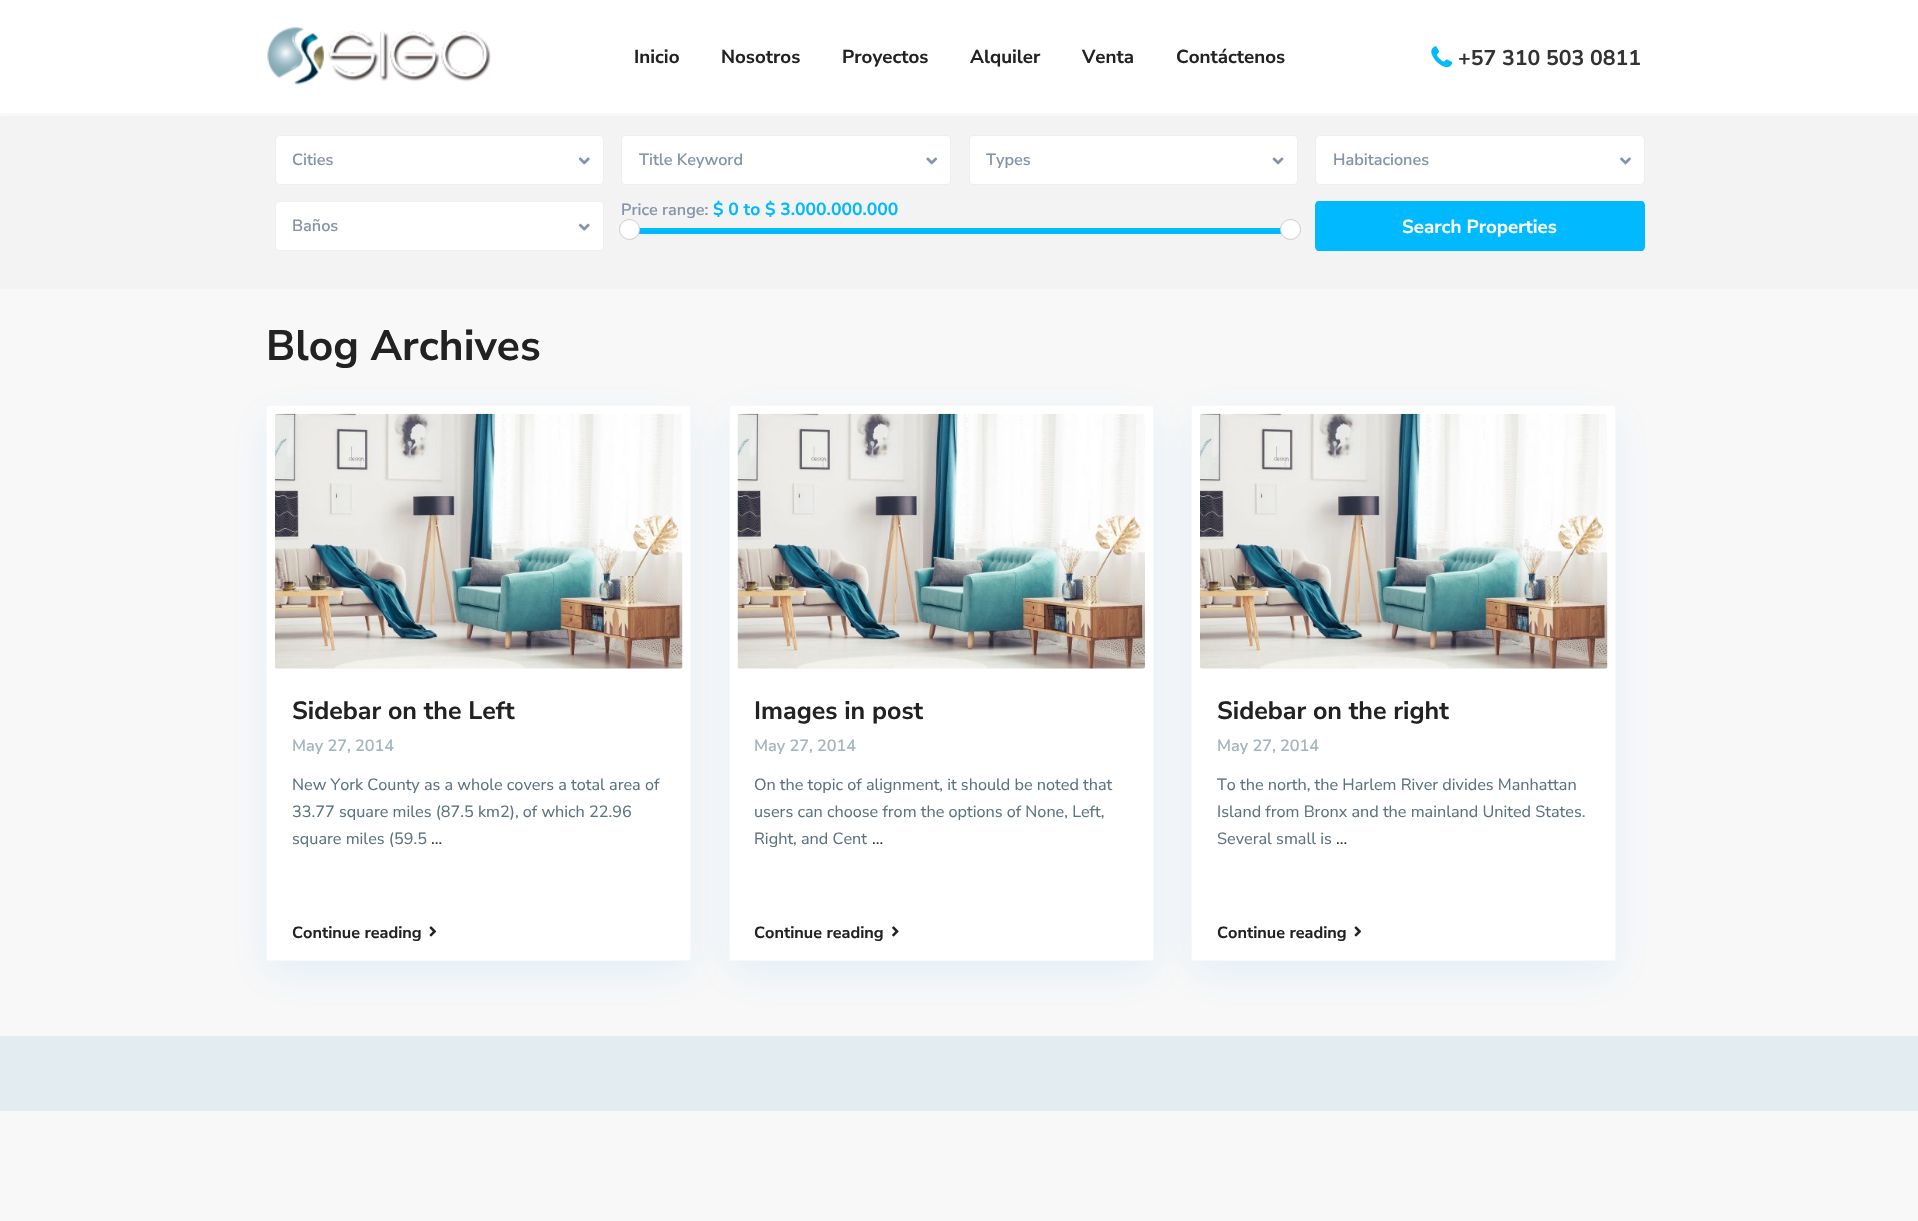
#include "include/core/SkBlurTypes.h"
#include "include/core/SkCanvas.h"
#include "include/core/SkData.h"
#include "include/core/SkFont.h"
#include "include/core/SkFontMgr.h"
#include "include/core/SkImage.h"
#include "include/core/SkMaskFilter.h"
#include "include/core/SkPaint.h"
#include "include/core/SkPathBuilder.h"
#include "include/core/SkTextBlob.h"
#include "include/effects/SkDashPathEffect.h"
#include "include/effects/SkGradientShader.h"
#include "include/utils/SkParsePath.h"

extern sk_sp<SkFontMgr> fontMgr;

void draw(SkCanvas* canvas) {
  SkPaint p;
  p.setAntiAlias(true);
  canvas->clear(SkColorSetRGB(248, 248, 248));
  p.setColor(SK_ColorWHITE);
  canvas->drawRect(SkRect::MakeLTRB(0, 0, 1918, 113), p);
  canvas->drawImageRect(SkImages::DeferredFromEncodedData(SkData::MakeFromFileName("images/1.png")), SkRect::MakeLTRB(267, 27, 491, 85), SkSamplingOptions());
  canvas->drawImageRect(SkImages::DeferredFromEncodedData(SkData::MakeFromFileName("images/2.png")), SkRect::MakeLTRB(1431, 46, 1453, 68), SkSamplingOptions());
  p.setColor(SkColorSetRGB(243, 243, 243));
  canvas->drawRoundRect(SkRect::MakeLTRB(0, 116, 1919, 289), 2.5f, 2.5f, p);
  p.setColor(SK_ColorWHITE);
  canvas->drawRoundRect(SkRect::MakeLTRB(275.5f, 135.5f, 603.5f, 184.5f), 3.5f, 3.5f, p);
  p.setStyle(SkPaint::kStroke_Style);
  p.setStrokeWidth(1);
  p.setColor(SkColorSetRGB(238, 238, 238));
  canvas->drawRoundRect(SkRect::MakeLTRB(275.5f, 135.5f, 603.5f, 184.5f), 3.5f, 3.5f, p);
  canvas->drawImageRect(SkImages::DeferredFromEncodedData(SkData::MakeFromFileName("images/3.png")), SkRect::MakeLTRB(578, 157, 590, 165), SkSamplingOptions());
  p.setStyle(SkPaint::kFill_Style);
  p.setColor(SK_ColorWHITE);
  canvas->drawRoundRect(SkRect::MakeLTRB(621.5f, 135.5f, 950.5f, 184.5f), 3.5f, 3.5f, p);
  p.setStyle(SkPaint::kStroke_Style);
  p.setColor(SkColorSetRGB(238, 238, 238));
  canvas->drawRoundRect(SkRect::MakeLTRB(621.5f, 135.5f, 950.5f, 184.5f), 3.5f, 3.5f, p);
  canvas->drawImageRect(SkImages::DeferredFromEncodedData(SkData::MakeFromFileName("images/4.png")), SkRect::MakeLTRB(926, 157, 938, 165), SkSamplingOptions());
  p.setStyle(SkPaint::kFill_Style);
  p.setColor(SK_ColorWHITE);
  canvas->drawRoundRect(SkRect::MakeLTRB(969.5f, 135.5f, 1297.5f, 184.5f), 3.5f, 3.5f, p);
  p.setStyle(SkPaint::kStroke_Style);
  p.setColor(SkColorSetRGB(238, 238, 238));
  canvas->drawRoundRect(SkRect::MakeLTRB(969.5f, 135.5f, 1297.5f, 184.5f), 3.5f, 3.5f, p);
  canvas->drawImageRect(SkImages::DeferredFromEncodedData(SkData::MakeFromFileName("images/5.png")), SkRect::MakeLTRB(1272, 157, 1284, 165), SkSamplingOptions());
  p.setStyle(SkPaint::kFill_Style);
  p.setColor(SK_ColorWHITE);
  canvas->drawRoundRect(SkRect::MakeLTRB(1315.5f, 135.5f, 1644.5f, 184.5f), 3.5f, 3.5f, p);
  p.setStyle(SkPaint::kStroke_Style);
  p.setColor(SkColorSetRGB(238, 238, 238));
  canvas->drawRoundRect(SkRect::MakeLTRB(1315.5f, 135.5f, 1644.5f, 184.5f), 3.5f, 3.5f, p);
  canvas->drawImageRect(SkImages::DeferredFromEncodedData(SkData::MakeFromFileName("images/6.png")), SkRect::MakeLTRB(1620, 157, 1631, 165), SkSamplingOptions());
  p.setStyle(SkPaint::kFill_Style);
  p.setColor(SkColorSetRGB(0, 185, 255));
  canvas->drawRect(SkRect::MakeLTRB(639, 228, 1281, 234), p);
  p.setColor(SK_ColorWHITE);
  canvas->drawCircle(629.5f, 229.5f, 10, p);
  p.setStyle(SkPaint::kStroke_Style);
  p.setColor(SkColorSetRGB(204, 204, 204));
  canvas->drawCircle(629.5f, 229.5f, 10, p);
  p.setStyle(SkPaint::kFill_Style);
  p.setColor(SK_ColorWHITE);
  canvas->drawCircle(1290.5f, 229.5f, 10, p);
  p.setStyle(SkPaint::kStroke_Style);
  p.setColor(SkColorSetRGB(204, 204, 204));
  canvas->drawCircle(1290.5f, 229.5f, 10, p);
  p.setStyle(SkPaint::kFill_Style);
  p.setColor(SK_ColorWHITE);
  canvas->drawRoundRect(SkRect::MakeLTRB(275.5f, 201.5f, 603.5f, 250.5f), 3.5f, 3.5f, p);
  p.setStyle(SkPaint::kStroke_Style);
  p.setColor(SkColorSetRGB(238, 238, 238));
  canvas->drawRoundRect(SkRect::MakeLTRB(275.5f, 201.5f, 603.5f, 250.5f), 3.5f, 3.5f, p);
  canvas->drawImageRect(SkImages::DeferredFromEncodedData(SkData::MakeFromFileName("images/7.png")), SkRect::MakeLTRB(578, 223, 590, 231), SkSamplingOptions());
  canvas->save();
  canvas->clipPath(SkPathBuilder().moveTo(1319, 201).lineTo(1641, 201).cubicTo(1643, 201, 1645, 203, 1645, 205).lineTo(1645, 247).cubicTo(1645, 249, 1643, 251, 1641, 251).lineTo(1319, 251).cubicTo(1317, 251, 1315, 249, 1315, 247).lineTo(1315, 205).cubicTo(1315, 203, 1317, 201, 1319, 201).close().detach(), true);
  p.setStyle(SkPaint::kFill_Style);
  p.setColor(SkColorSetRGB(0, 185, 255));
  canvas->drawRect(SkRect::MakeLTRB(1316, 201, 1644, 251), p);
  canvas->restore();
  p.setStyle(SkPaint::kStroke_Style);
  canvas->drawRoundRect(SkRect::MakeLTRB(1315.5f, 201.5f, 1644.5f, 250.5f), 3.5f, 3.5f, p);
  p.setStyle(SkPaint::kFill_Style);
  p.setColor(SkColorSetARGB(23, 7, 152, 255));
  p.setMaskFilter(SkMaskFilter::MakeBlur(kNormal_SkBlurStyle, 19.5f));
  canvas->drawRoundRect(SkRect::MakeLTRB(266, 418, 691, 974), 2.5f, 2.5f, p);
  p.setMaskFilter(nullptr);
  p.setColor(SK_ColorWHITE);
  canvas->drawRoundRect(SkRect::MakeLTRB(266.5f, 405.5f, 690.5f, 960.5f), 2, 2, p);
  p.setStyle(SkPaint::kStroke_Style);
  p.setColor(SkColorSetRGB(248, 248, 248));
  canvas->drawRoundRect(SkRect::MakeLTRB(266.5f, 405.5f, 690.5f, 960.5f), 2, 2, p);
  canvas->drawImageRect(SkImages::DeferredFromEncodedData(SkData::MakeFromFileName("images/8.png")), SkRect::MakeLTRB(275, 413, 683, 669), SkSamplingOptions());
  canvas->drawImageRect(SkImages::DeferredFromEncodedData(SkData::MakeFromFileName("images/9.png")), SkRect::MakeLTRB(429, 926, 436, 937), SkSamplingOptions());
  p.setStyle(SkPaint::kFill_Style);
  p.setColor(SkColorSetARGB(23, 7, 152, 255));
  p.setMaskFilter(SkMaskFilter::MakeBlur(kNormal_SkBlurStyle, 19.5f));
  canvas->drawRoundRect(SkRect::MakeLTRB(729, 418, 1154, 974), 2.5f, 2.5f, p);
  p.setMaskFilter(nullptr);
  p.setColor(SK_ColorWHITE);
  canvas->drawRoundRect(SkRect::MakeLTRB(729.5f, 405.5f, 1153.5f, 960.5f), 2, 2, p);
  p.setStyle(SkPaint::kStroke_Style);
  p.setColor(SkColorSetRGB(248, 248, 248));
  canvas->drawRoundRect(SkRect::MakeLTRB(729.5f, 405.5f, 1153.5f, 960.5f), 2, 2, p);
  canvas->drawImageRect(SkImages::DeferredFromEncodedData(SkData::MakeFromFileName("images/10.png")), SkRect::MakeLTRB(737, 413, 1145, 669), SkSamplingOptions());
  canvas->drawImageRect(SkImages::DeferredFromEncodedData(SkData::MakeFromFileName("images/11.png")), SkRect::MakeLTRB(892, 926, 899, 937), SkSamplingOptions());
  p.setStyle(SkPaint::kFill_Style);
  p.setColor(SkColorSetARGB(23, 7, 152, 255));
  p.setMaskFilter(SkMaskFilter::MakeBlur(kNormal_SkBlurStyle, 19.5f));
  canvas->drawRoundRect(SkRect::MakeLTRB(1191, 418, 1616, 974), 2.5f, 2.5f, p);
  p.setMaskFilter(nullptr);
  p.setColor(SK_ColorWHITE);
  canvas->drawRoundRect(SkRect::MakeLTRB(1191.5f, 405.5f, 1615.5f, 960.5f), 2, 2, p);
  p.setStyle(SkPaint::kStroke_Style);
  p.setColor(SkColorSetRGB(248, 248, 248));
  canvas->drawRoundRect(SkRect::MakeLTRB(1191.5f, 405.5f, 1615.5f, 960.5f), 2, 2, p);
  canvas->drawImageRect(SkImages::DeferredFromEncodedData(SkData::MakeFromFileName("images/12.png")), SkRect::MakeLTRB(1200, 413, 1608, 669), SkSamplingOptions());
  canvas->drawImageRect(SkImages::DeferredFromEncodedData(SkData::MakeFromFileName("images/9.png")), SkRect::MakeLTRB(1354, 926, 1361, 937), SkSamplingOptions());
  p.setStyle(SkPaint::kFill_Style);
  p.setColor(SkColorSetRGB(227, 236, 240));
  canvas->drawRect(SkRect::MakeLTRB(0, 1036, 1918, 1111), p);
  SkFont font1(fontMgr->matchFamilyStyle("Nunito Sans", SkFontStyle::Bold()), 18.75f);
  font1.setSubpixel(true);
  p.setColor(SkColorSetRGB(34, 34, 34));
  canvas->drawString("Inicio", 634, 63, font1, p);
  canvas->drawString("Nosotros", 721, 63, font1, p);
  canvas->drawString("Proyectos", 842, 63, font1, p);
  canvas->drawString("Alquiler", 970, 63, font1, p);
  canvas->drawString("Venta", 1082, 63, font1, p);
  canvas->drawString("Contáctenos", 1176, 63, font1, p);
  SkFont font2(fontMgr->matchFamilyStyle("Nunito Sans", SkFontStyle::Bold()), 21.25f);
  font2.setSubpixel(true);
  p.setColor(SkColorSetRGB(51, 51, 51));
  canvas->drawString("+57 310 503 0811", 1458, 65, font2, p);
  SkFont font3(fontMgr->matchFamilyStyle("Nunito Sans", SkFontStyle(600, SkFontStyle::kNormal_Width, SkFontStyle::kUpright_Slant)), 16.25f);
  font3.setSubpixel(true);
  p.setColor(SkColorSetRGB(133, 147, 169));
  canvas->drawString("Cities", 292, 165, font3, p);
  canvas->drawString("Title Keyword", 639, 165, font3, p);
  canvas->drawString("Types", 986, 165, font3, p);
  canvas->drawString("Habitaciones", 1333, 165, font3, p);
  canvas->drawString("Price range:", 621, 215, font3, p);
  SkFont font4(fontMgr->matchFamilyStyle("Nunito Sans", SkFontStyle::Bold()), 17.5f);
  font4.setSubpixel(true);
  p.setColor(SkColorSetRGB(0, 185, 255));
  canvas->drawString("$ 0 to $ 3.000.000.000", 713, 215, font4, p);
  p.setColor(SkColorSetRGB(133, 147, 169));
  canvas->drawString("Baños", 292, 231, font3, p);
  p.setColor(SK_ColorWHITE);
  canvas->drawString("Search Properties", 1402, 233, font1, p);
  SkFont font5(fontMgr->matchFamilyStyle("Nunito Sans", SkFontStyle::Bold()), 42.5f);
  font5.setSubpixel(true);
  p.setColor(SkColorSetRGB(34, 34, 34));
  canvas->drawString("Blog Archives", 266, 360, font5, p);
  SkFont font6(fontMgr->matchFamilyStyle("Nunito Sans", SkFontStyle::Bold()), 25);
  font6.setSubpixel(true);
  canvas->drawString("Sidebar on the Left", 292, 719, font6, p);
  p.setColor(SkColorSetRGB(165, 181, 189));
  canvas->drawString("May 27, 2014", 292, 751, font3, p);
  SkFont font7(fontMgr->matchFamilyStyle("Nunito Sans", SkFontStyle::Normal()), 16.25f);
  font7.setSubpixel(true);
  p.setColor(SkColorSetRGB(92, 114, 125));
  canvas->drawString("New York County as a whole covers a total area of", 292, 790, font7, p);
  canvas->drawString("33.77 square miles (87.5 km2), of which 22.96", 292, 817, font7, p);
  canvas->drawString("square miles (59.5", 292, 844, font7, p);
  p.setColor(SkColorSetRGB(51, 51, 51));
  canvas->drawString("...", 431, 844, font7, p);
  SkFont font8(fontMgr->matchFamilyStyle("Nunito Sans", SkFontStyle::Bold()), 16.25f);
  font8.setSubpixel(true);
  p.setColor(SkColorSetRGB(34, 34, 34));
  canvas->drawString("Continue reading", 292, 938, font8, p);
  canvas->drawString("Images in post", 754, 719, font6, p);
  p.setColor(SkColorSetRGB(165, 181, 189));
  canvas->drawString("May 27, 2014", 754, 751, font3, p);
  p.setColor(SkColorSetRGB(92, 114, 125));
  canvas->drawString("On the topic of alignment, it should be noted that", 754, 790, font7, p);
  canvas->drawString("users can choose from the options of None, Left,", 754, 817, font7, p);
  canvas->drawString("Right, and Cent", 754, 844, font7, p);
  p.setColor(SkColorSetRGB(51, 51, 51));
  canvas->drawString("...", 872, 844, font7, p);
  p.setColor(SkColorSetRGB(34, 34, 34));
  canvas->drawString("Continue reading", 754, 938, font8, p);
  canvas->drawString("Sidebar on the right", 1217, 719, font6, p);
  p.setColor(SkColorSetRGB(165, 181, 189));
  canvas->drawString("May 27, 2014", 1217, 751, font3, p);
  p.setColor(SkColorSetRGB(92, 114, 125));
  canvas->drawString("To the north, the Harlem River divides Manhattan", 1217, 790, font7, p);
  canvas->drawString("Island from Bronx and the mainland United States.", 1217, 817, font7, p);
  canvas->drawString("Several small is", 1217, 844, font7, p);
  p.setColor(SkColorSetRGB(51, 51, 51));
  canvas->drawString("...", 1336, 844, font7, p);
  p.setColor(SkColorSetRGB(34, 34, 34));
  canvas->drawString("Continue reading", 1217, 938, font8, p);
}
